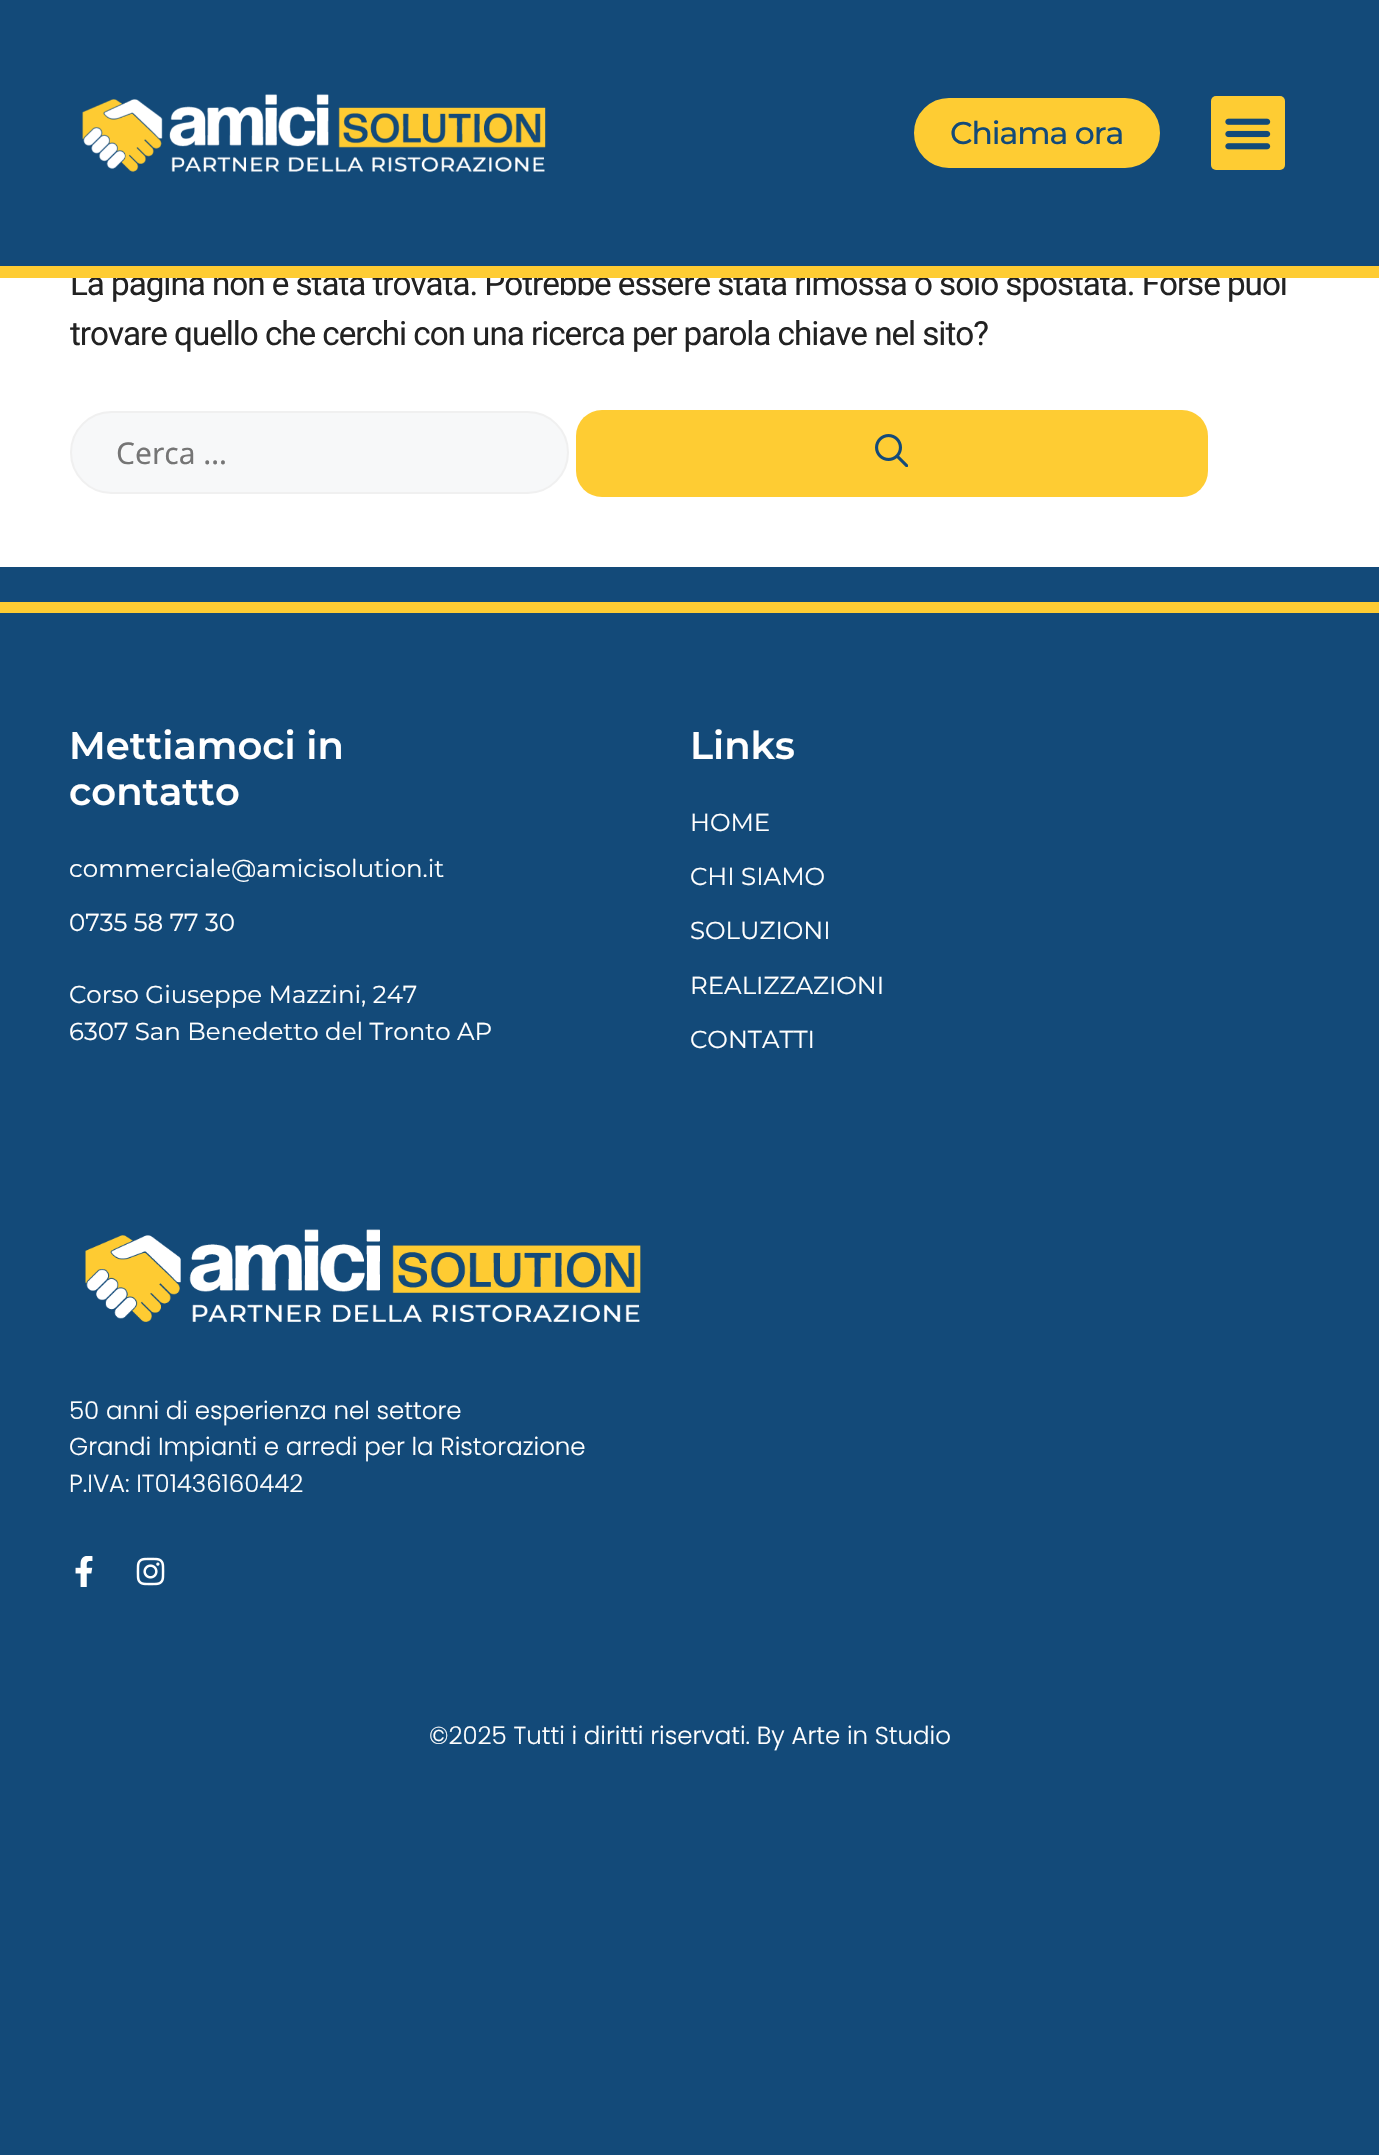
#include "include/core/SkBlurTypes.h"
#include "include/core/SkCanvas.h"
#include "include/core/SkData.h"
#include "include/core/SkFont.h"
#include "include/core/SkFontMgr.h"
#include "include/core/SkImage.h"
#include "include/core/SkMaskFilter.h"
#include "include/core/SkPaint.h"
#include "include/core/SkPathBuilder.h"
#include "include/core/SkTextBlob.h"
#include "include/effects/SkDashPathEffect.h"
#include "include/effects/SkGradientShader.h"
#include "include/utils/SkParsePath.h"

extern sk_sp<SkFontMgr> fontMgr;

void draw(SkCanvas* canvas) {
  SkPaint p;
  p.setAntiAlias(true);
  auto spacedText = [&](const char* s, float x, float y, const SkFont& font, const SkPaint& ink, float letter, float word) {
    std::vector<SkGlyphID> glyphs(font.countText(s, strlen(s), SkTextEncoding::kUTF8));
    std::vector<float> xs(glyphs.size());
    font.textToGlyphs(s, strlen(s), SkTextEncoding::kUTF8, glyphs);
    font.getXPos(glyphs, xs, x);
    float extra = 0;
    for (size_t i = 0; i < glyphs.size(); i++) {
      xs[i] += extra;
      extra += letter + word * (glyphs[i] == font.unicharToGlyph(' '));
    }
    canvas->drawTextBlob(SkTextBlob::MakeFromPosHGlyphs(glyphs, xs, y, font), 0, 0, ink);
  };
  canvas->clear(SkColorSetRGB(19, 74, 121));
  canvas->drawImageRect(SkImages::DeferredFromEncodedData(SkData::MakeFromFileName("images/1.png")), SkRect::MakeLTRB(82, 94, 546, 172), SkSamplingOptions());
  p.setColor(SkColorSetRGB(254, 204, 51));
  canvas->drawRoundRect(SkRect::MakeLTRB(915, 99, 1159, 167), 34, 34, p);
  p.setStyle(SkPaint::kStroke_Style);
  p.setStrokeWidth(2);
  canvas->drawRoundRect(SkRect::MakeLTRB(915, 99, 1159, 167), 34, 34, p);
  p.setStyle(SkPaint::kFill_Style);
  canvas->drawRoundRect(SkRect::MakeLTRB(1211, 96, 1285, 170), 5, 5, p);
  canvas->drawImageRect(SkImages::DeferredFromEncodedData(SkData::MakeFromFileName("images/2.png")), SkRect::MakeLTRB(1225, 118, 1271, 150), SkSamplingOptions());
  p.setColor(SK_ColorWHITE);
  canvas->drawRect(SkRect::MakeLTRB(0, 278, 1379, 567), p);
  p.setColor(SkColorSetRGB(247, 248, 249));
  canvas->drawRoundRect(SkRect::MakeLTRB(71, 412, 568, 493), 40.5f, 40.5f, p);
  p.setStyle(SkPaint::kStroke_Style);
  p.setColor(SkColorSetRGB(240, 240, 240));
  canvas->drawRoundRect(SkRect::MakeLTRB(71, 412, 568, 493), 40.5f, 40.5f, p);
  p.setStyle(SkPaint::kFill_Style);
  p.setColor(SkColorSetRGB(254, 204, 51));
  canvas->drawRoundRect(SkRect::MakeLTRB(576, 410, 1208, 497), 26, 26, p);
  canvas->drawImageRect(SkImages::DeferredFromEncodedData(SkData::MakeFromFileName("images/3.png")), SkRect::MakeLTRB(875, 434, 908, 467), SkSamplingOptions());
  canvas->drawRect(SkRect::MakeLTRB(0, 602, 1379, 613), p);
  canvas->drawImageRect(SkImages::DeferredFromEncodedData(SkData::MakeFromFileName("images/4.png")), SkRect::MakeLTRB(85, 1229, 641, 1322), SkSamplingOptions());
  canvas->drawImageRect(SkImages::DeferredFromEncodedData(SkData::MakeFromFileName("images/5.png")), SkRect::MakeLTRB(75, 1556, 93, 1587), SkSamplingOptions());
  canvas->drawImageRect(SkImages::DeferredFromEncodedData(SkData::MakeFromFileName("images/6.png")), SkRect::MakeLTRB(136, 1557, 165, 1586), SkSamplingOptions());
  SkFont font1(fontMgr->matchFamilyStyle("Montserrat", SkFontStyle(500, SkFontStyle::kNormal_Width, SkFontStyle::kUpright_Slant)), 31.5f);
  font1.setSubpixel(true);
  p.setColor(SkColorSetRGB(19, 74, 121));
  spacedText("Chiama ora", 950, 144, font1, p, -1.05f, 0);
  SkFont font2(fontMgr->matchFamilyStyle("Roboto", SkFontStyle::Normal()), 33.25f);
  font2.setSubpixel(true);
  p.setColor(SkColorSetRGB(34, 34, 34));
  spacedText("La pagina non è stata trovata. Potrebbe essere stata rimossa o solo spostata. Forse puoi", 70, 295, font2, p, -1.05f, 0);
  p.setColor(SkColorSetRGB(254, 204, 51));
  canvas->drawRect(SkRect::MakeLTRB(0, 266, 1379, 278), p);
  p.setColor(SkColorSetRGB(34, 34, 34));
  spacedText("trovare quello che cerchi con una ricerca per parola chiave nel sito?", 70, 345, font2, p, -1.05f, 0);
  SkFont font3(fontMgr->matchFamilyStyle("Noto Sans", SkFontStyle::Normal()), 30);
  font3.setSubpixel(true);
  p.setColor(SkColorSetRGB(117, 117, 117));
  canvas->drawString("Cerca …", 116, 464, font3, p);
  SkFont font4(fontMgr->matchFamilyStyle("Montserrat", SkFontStyle(600, SkFontStyle::kNormal_Width, SkFontStyle::kUpright_Slant)), 38.5f);
  font4.setSubpixel(true);
  p.setColor(SK_ColorWHITE);
  canvas->drawString("Mettiamoci in", 69, 759, font4, p);
  canvas->drawString("contatto", 69, 805, font4, p);
  SkFont font5(fontMgr->matchFamilyStyle("Montserrat", SkFontStyle::Normal()), 24.5f);
  font5.setSubpixel(true);
  canvas->drawString("commerciale@amicisolution.it", 69, 877, font5, p);
  canvas->drawString("0735 58 77 30", 69, 931, font5, p);
  canvas->drawString("Corso Giuseppe Mazzini, 247", 69, 1003, font5, p);
  canvas->drawString("6307 San Benedetto del Tronto AP", 69, 1040, font5, p);
  canvas->drawString("Links", 690, 759, font4, p);
  canvas->drawString("HOME", 690, 831, font5, p);
  canvas->drawString("CHI SIAMO", 690, 885, font5, p);
  canvas->drawString("SOLUZIONI", 690, 939, font5, p);
  canvas->drawString("REALIZZAZIONI", 690, 994, font5, p);
  canvas->drawString("CONTATTI", 690, 1048, font5, p);
  SkFont font6(fontMgr->matchFamilyStyle("Poppins", SkFontStyle(300, SkFontStyle::kNormal_Width, SkFontStyle::kUpright_Slant)), 24.5f);
  font6.setSubpixel(true);
  canvas->drawString("50 anni di esperienza nel settore", 69, 1419, font6, p);
  canvas->drawString("Grandi Impianti e arredi per la Ristorazione", 69, 1455, font6, p);
  canvas->drawString("P.IVA: IT01436160442", 69, 1492, font6, p);
  canvas->drawString("©2025 Tutti i diritti riservati. By Arte in Studio", 429, 1744, font6, p);
}
